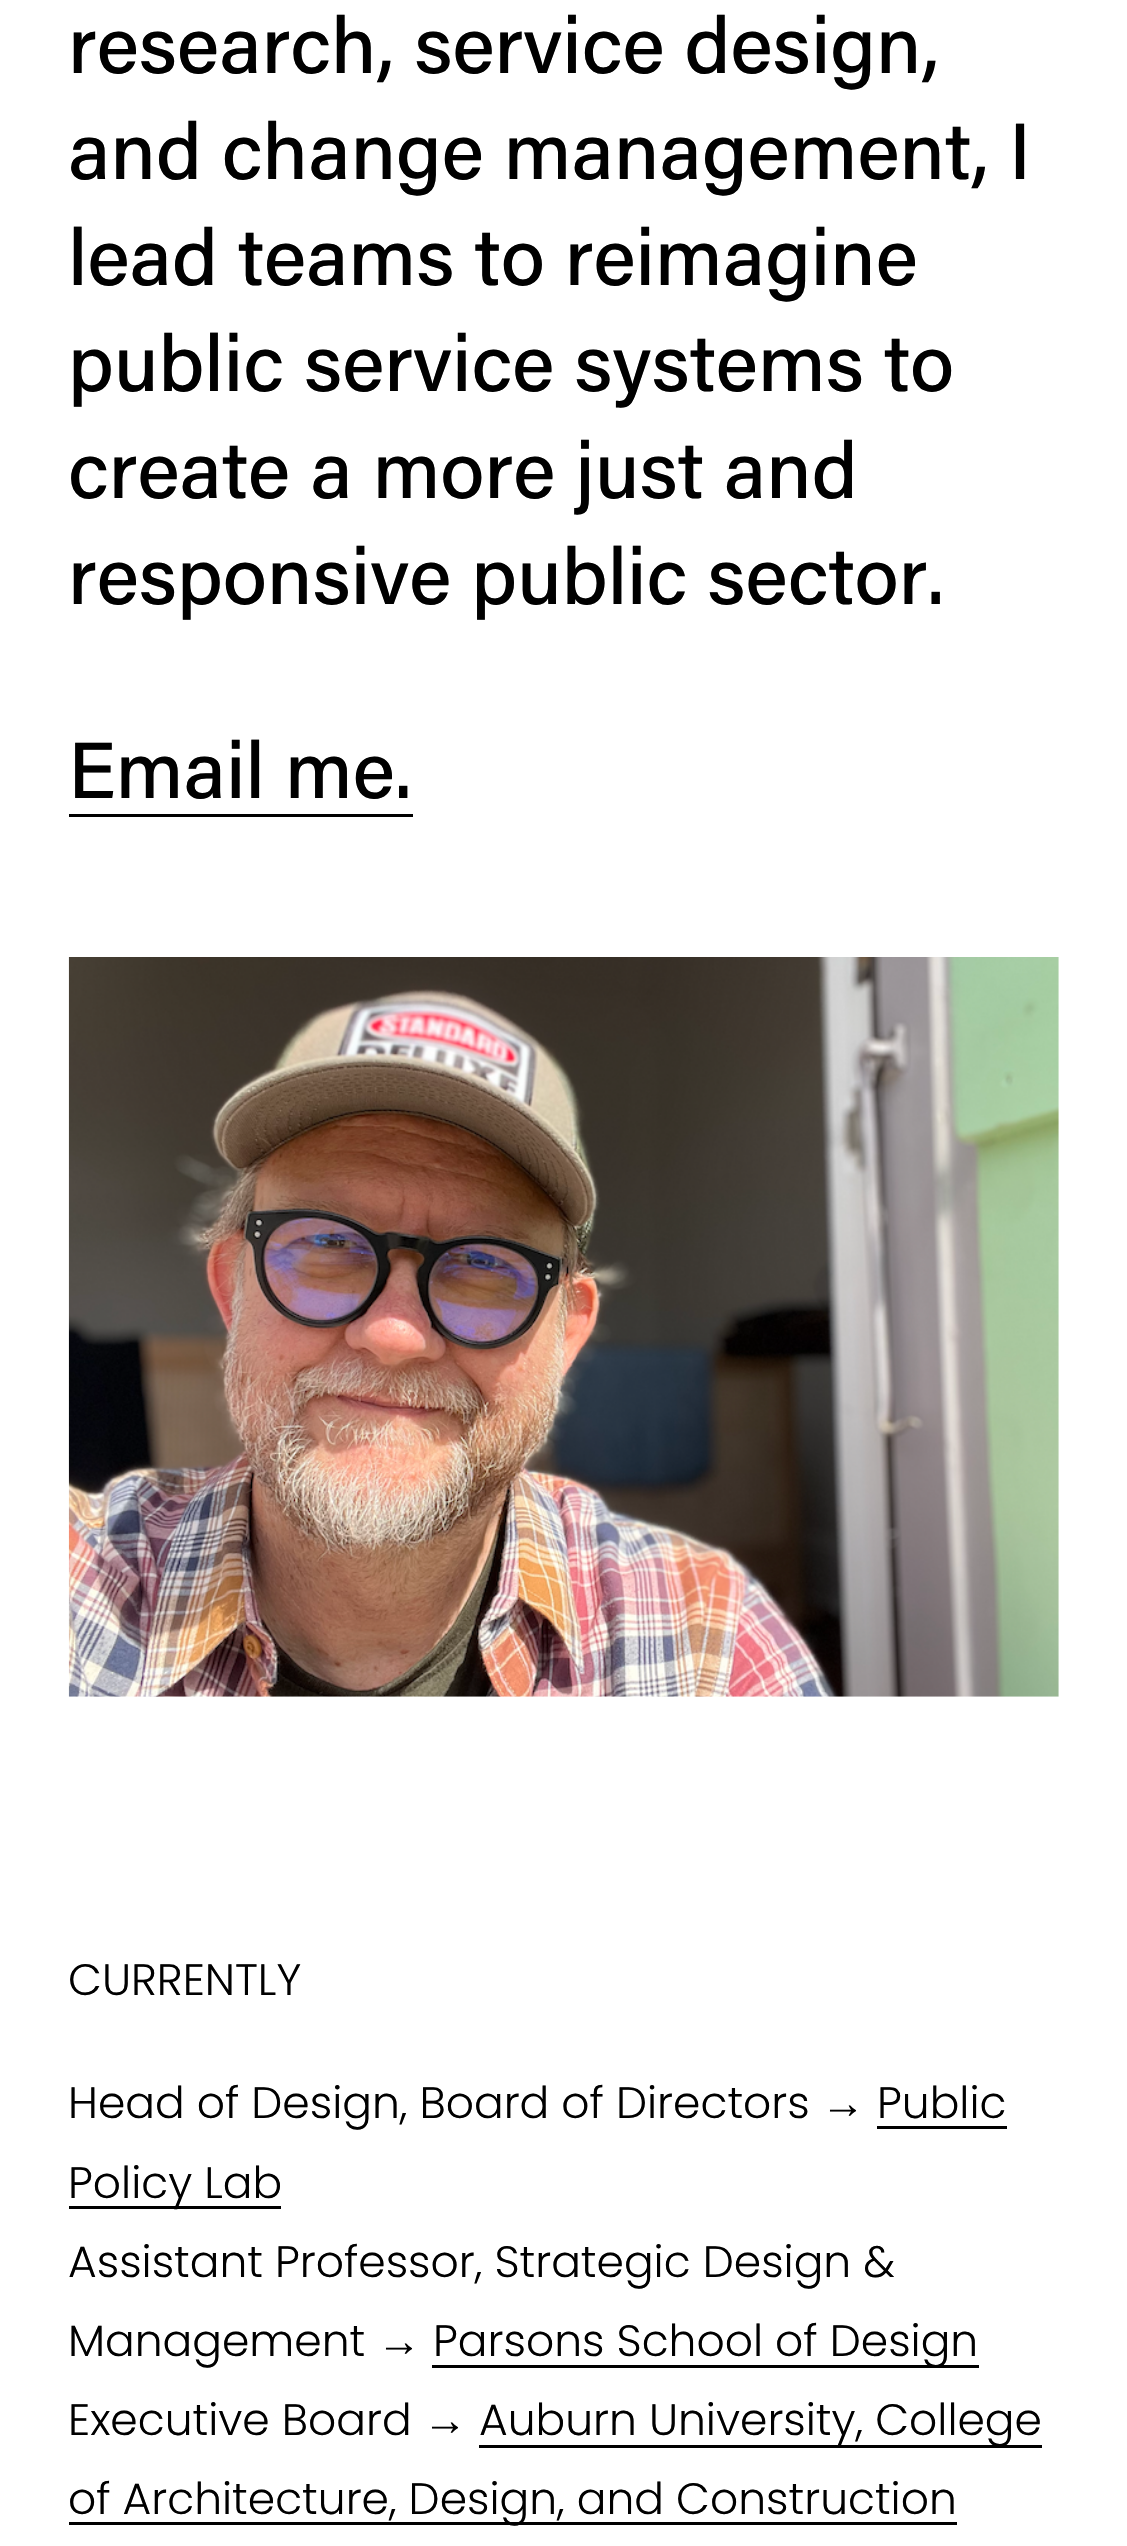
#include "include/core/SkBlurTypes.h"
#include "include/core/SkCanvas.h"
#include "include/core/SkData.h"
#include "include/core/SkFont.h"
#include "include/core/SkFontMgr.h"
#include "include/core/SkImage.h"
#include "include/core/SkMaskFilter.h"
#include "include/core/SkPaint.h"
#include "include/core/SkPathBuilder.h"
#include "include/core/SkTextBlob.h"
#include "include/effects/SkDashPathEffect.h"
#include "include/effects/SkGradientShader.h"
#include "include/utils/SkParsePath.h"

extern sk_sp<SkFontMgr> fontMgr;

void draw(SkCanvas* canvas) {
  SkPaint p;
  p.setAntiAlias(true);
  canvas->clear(SK_ColorWHITE);
  p.setColor(SK_ColorBLACK);
  canvas->drawRect(SkRect::MakeLTRB(69, 814, 413, 817), p);
  canvas->drawImageRect(SkImages::DeferredFromEncodedData(SkData::MakeFromFileName("images/1.png")), SkRect::MakeLTRB(68, 957, 1059, 1697), SkSamplingOptions());
  canvas->drawRect(SkRect::MakeLTRB(877, 2126, 1007, 2129), p);
  canvas->drawRect(SkRect::MakeLTRB(69, 2206, 281, 2209), p);
  canvas->drawRect(SkRect::MakeLTRB(432, 2365, 979, 2368), p);
  canvas->drawRect(SkRect::MakeLTRB(479, 2445, 1042, 2448), p);
  canvas->drawRect(SkRect::MakeLTRB(69, 2522, 957, 2525), p);
  SkFont font1(fontMgr->matchFamilyStyle("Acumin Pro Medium", SkFontStyle(500, SkFontStyle::kNormal_Width, SkFontStyle::kUpright_Slant)), 79.6f);
  font1.setSubpixel(true);
  canvas->drawString("research, service design,", 68, 73, font1, p);
  canvas->drawString("and change management, I", 68, 179, font1, p);
  canvas->drawString("lead teams to reimagine", 68, 285, font1, p);
  canvas->drawString("public service systems to", 68, 391, font1, p);
  canvas->drawString("create a more just and", 68, 498, font1, p);
  canvas->drawString("responsive public sector.", 68, 604, font1, p);
  canvas->drawString("Email me.", 68, 798, font1, p);
  SkFont font2(fontMgr->matchFamilyStyle("Poppins", SkFontStyle(300, SkFontStyle::kNormal_Width, SkFontStyle::kUpright_Slant)), 44);
  font2.setSubpixel(true);
  canvas->drawString("CURRENTLY", 68, 1995, font2, p);
  canvas->drawString("Head of Design, Board of Directors", 68, 2118, font2, p);
  SkFont font3(fontMgr->matchFamilyStyle("Liberation Serif", SkFontStyle::Normal()), 44);
  font3.setSubpixel(true);
  canvas->drawString("→", 821, 2118, font3, p);
  canvas->drawString("Public", 877, 2118, font2, p);
  canvas->drawString("Policy Lab", 68, 2198, font2, p);
  canvas->drawString("Assistant Professor, Strategic Design &", 68, 2277, font2, p);
  canvas->drawString("Management", 68, 2356, font2, p);
  canvas->drawString("→", 377, 2356, font3, p);
  canvas->drawString("Parsons School of Design", 433, 2356, font2, p);
  canvas->drawString("Executive Board", 68, 2435, font2, p);
  canvas->drawString("→", 423, 2435, font3, p);
  canvas->drawString("Auburn University, College", 479, 2435, font2, p);
  canvas->drawString("of Architecture, Design, and Construction", 68, 2514, font2, p);
}
